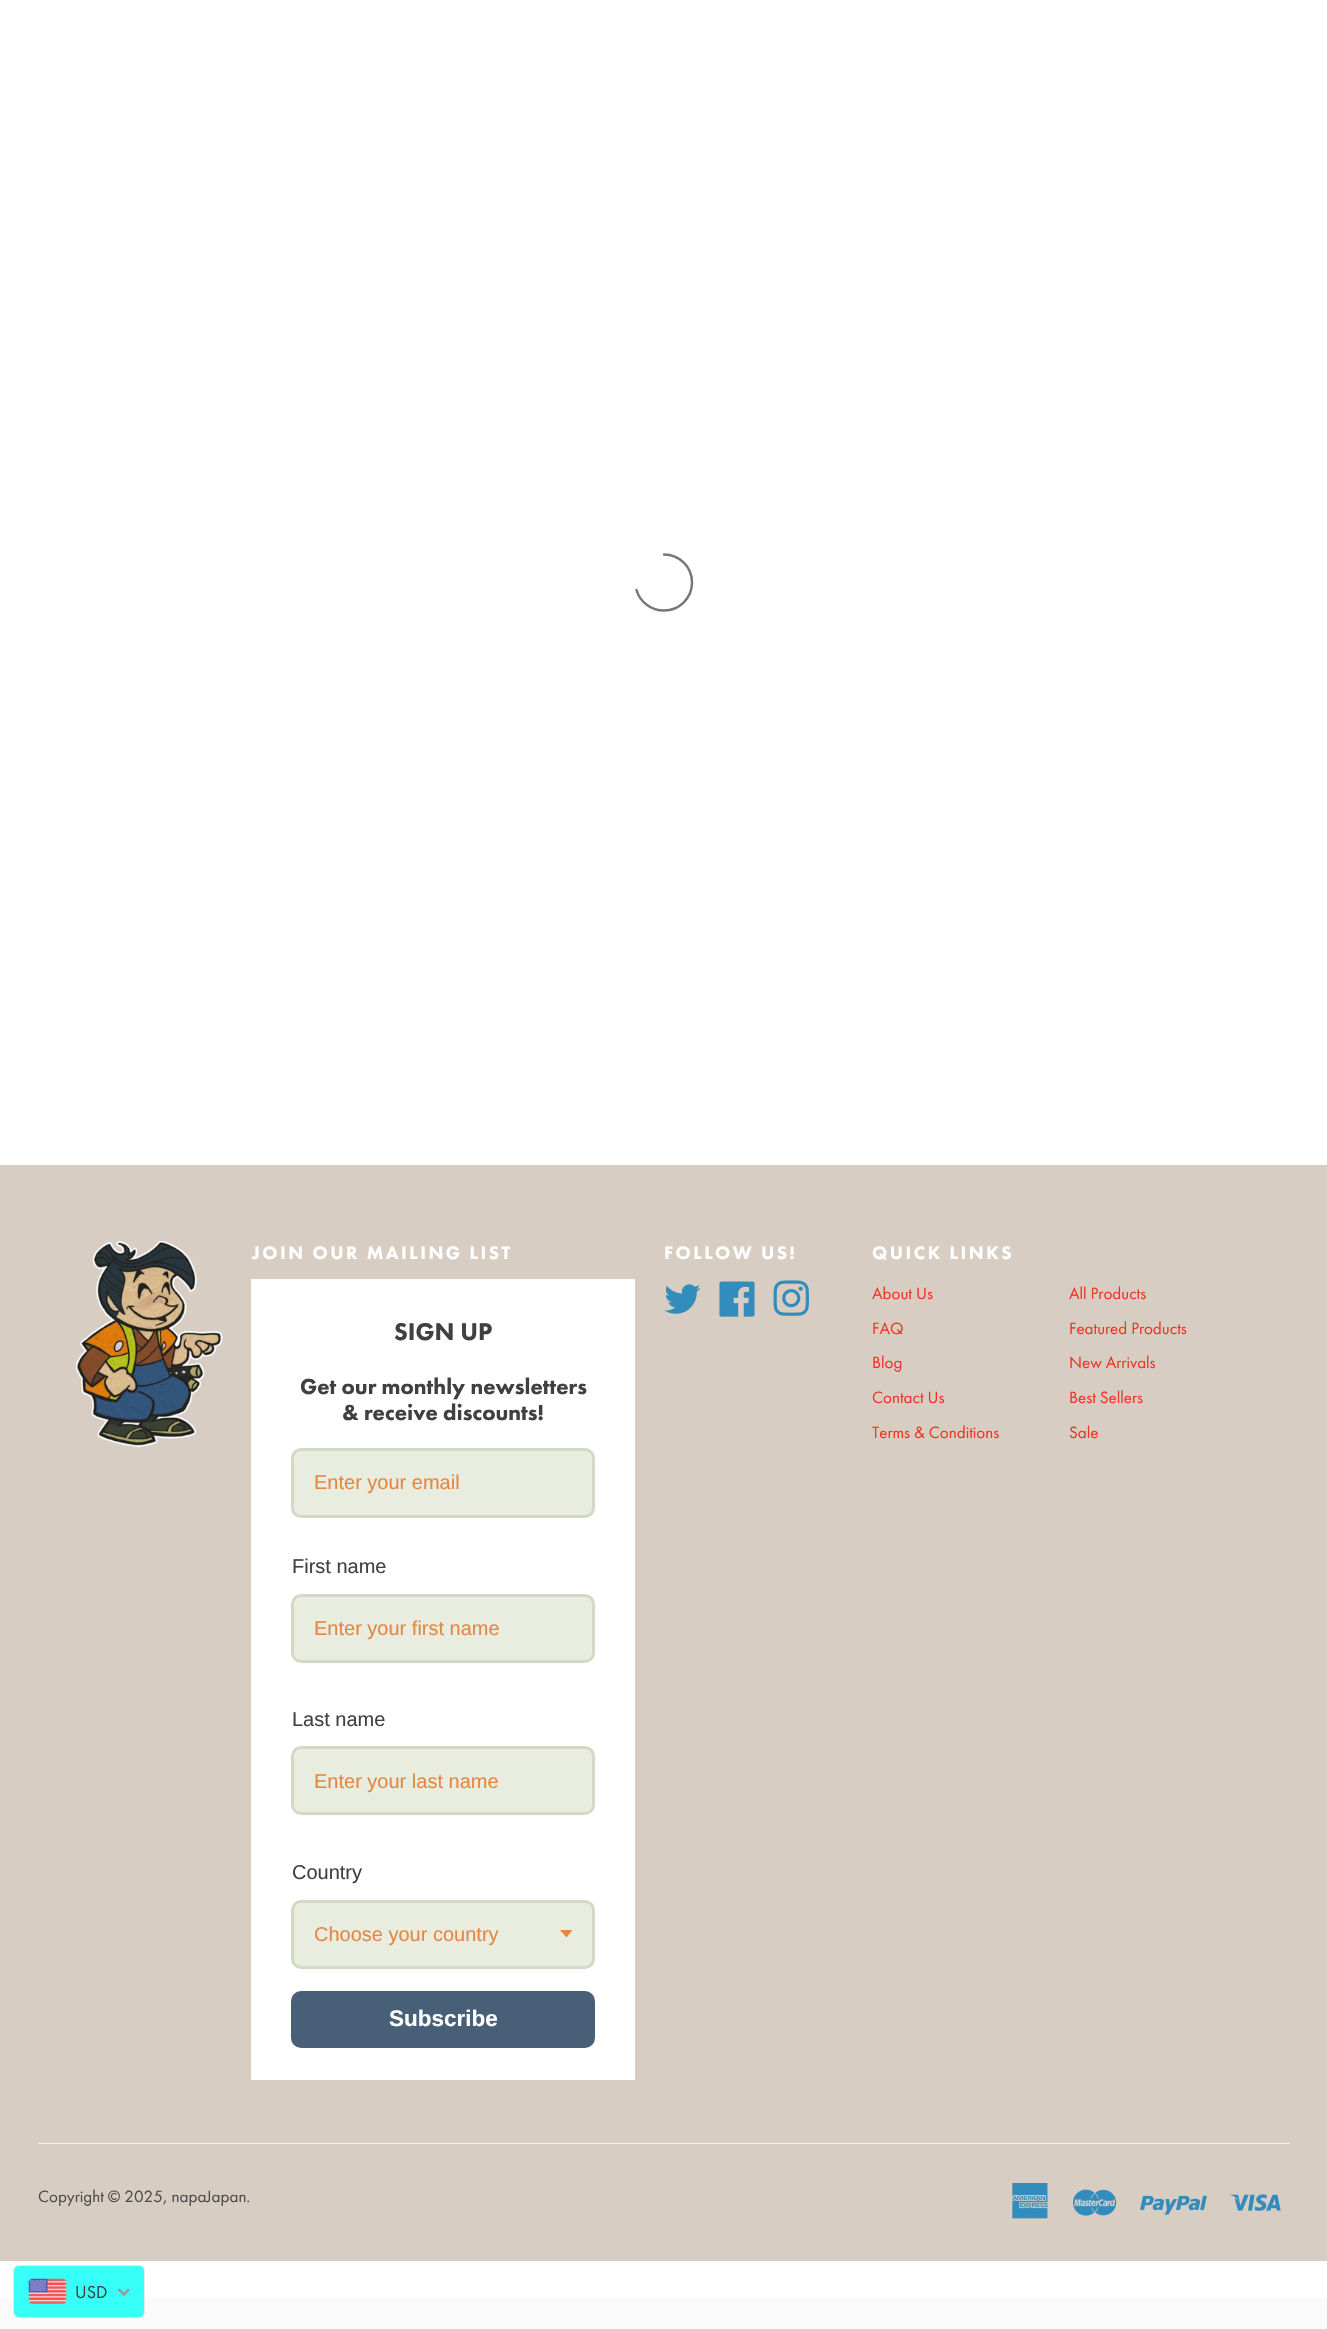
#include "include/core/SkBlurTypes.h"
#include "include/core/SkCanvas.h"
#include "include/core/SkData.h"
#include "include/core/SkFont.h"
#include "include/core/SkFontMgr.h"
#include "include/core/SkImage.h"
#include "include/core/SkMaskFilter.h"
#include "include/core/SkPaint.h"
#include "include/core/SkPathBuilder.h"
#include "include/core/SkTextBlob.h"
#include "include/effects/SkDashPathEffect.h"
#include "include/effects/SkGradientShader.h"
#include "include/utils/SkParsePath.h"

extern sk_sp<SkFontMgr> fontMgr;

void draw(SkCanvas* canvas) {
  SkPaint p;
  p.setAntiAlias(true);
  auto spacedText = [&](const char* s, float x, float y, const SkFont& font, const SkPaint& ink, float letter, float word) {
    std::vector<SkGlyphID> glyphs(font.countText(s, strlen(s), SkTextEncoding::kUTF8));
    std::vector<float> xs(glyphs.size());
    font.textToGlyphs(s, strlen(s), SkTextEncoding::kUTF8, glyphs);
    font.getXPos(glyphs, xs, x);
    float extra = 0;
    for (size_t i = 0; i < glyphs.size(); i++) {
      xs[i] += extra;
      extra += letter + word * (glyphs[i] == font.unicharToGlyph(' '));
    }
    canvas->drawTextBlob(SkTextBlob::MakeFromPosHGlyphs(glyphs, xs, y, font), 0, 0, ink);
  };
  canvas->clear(SkColorSetRGB(250, 250, 250));
  p.setColor(SK_ColorWHITE);
  canvas->drawRect(SkRect::MakeLTRB(0, 0, 1327, 2298), p);
  p.setStyle(SkPaint::kStroke_Style);
  p.setStrokeWidth(2.5f);
  p.setStrokeCap(SkPaint::kRound_Cap);
  p.setColor(SkColorSetRGB(119, 119, 119));
  canvas->drawPath(SkPathBuilder().moveTo(664, 554.5f).cubicTo(679.5f, 554.5f, 692, 567, 692, 582.5f).cubicTo(692, 598, 679.5f, 610.5f, 664, 610.5f).cubicTo(651, 610.5f, 640, 602, 636.5f, 590).detach(), p);
  p.setStyle(SkPaint::kFill_Style);
  p.setColor(SkColorSetRGB(215, 205, 195));
  canvas->drawRect(SkRect::MakeLTRB(0, 1165, 1327, 2261), p);
  canvas->drawImageRect(SkImages::DeferredFromEncodedData(SkData::MakeFromFileName("images/1.png")), SkRect::MakeLTRB(75, 1240, 223, 1448), SkSamplingOptions());
  p.setColor(SK_ColorWHITE);
  canvas->drawRect(SkRect::MakeLTRB(251, 1279, 635, 2080), p);
  p.setColor(SkColorSetRGB(232, 237, 224));
  canvas->drawRoundRect(SkRect::MakeLTRB(292.5f, 1449.5f, 593.5f, 1516.5f), 8.5f, 8.5f, p);
  p.setStyle(SkPaint::kStroke_Style);
  p.setStrokeWidth(3);
  p.setStrokeCap(SkPaint::kButt_Cap);
  p.setColor(SkColorSetRGB(210, 218, 197));
  canvas->drawRoundRect(SkRect::MakeLTRB(292.5f, 1449.5f, 593.5f, 1516.5f), 8.5f, 8.5f, p);
  p.setStyle(SkPaint::kFill_Style);
  p.setColor(SkColorSetRGB(232, 237, 224));
  canvas->drawRoundRect(SkRect::MakeLTRB(292.5f, 1595.5f, 593.5f, 1661.5f), 8.5f, 8.5f, p);
  p.setStyle(SkPaint::kStroke_Style);
  p.setColor(SkColorSetRGB(210, 218, 197));
  canvas->drawRoundRect(SkRect::MakeLTRB(292.5f, 1595.5f, 593.5f, 1661.5f), 8.5f, 8.5f, p);
  p.setStyle(SkPaint::kFill_Style);
  p.setColor(SkColorSetRGB(232, 237, 224));
  canvas->drawRoundRect(SkRect::MakeLTRB(292.5f, 1747.5f, 593.5f, 1813.5f), 8.5f, 8.5f, p);
  p.setStyle(SkPaint::kStroke_Style);
  p.setColor(SkColorSetRGB(210, 218, 197));
  canvas->drawRoundRect(SkRect::MakeLTRB(292.5f, 1747.5f, 593.5f, 1813.5f), 8.5f, 8.5f, p);
  p.setStyle(SkPaint::kFill_Style);
  p.setColor(SkColorSetRGB(232, 237, 224));
  canvas->drawRoundRect(SkRect::MakeLTRB(292.5f, 1901.5f, 593.5f, 1967.5f), 8.5f, 8.5f, p);
  p.setStyle(SkPaint::kStroke_Style);
  p.setColor(SkColorSetRGB(210, 218, 197));
  canvas->drawRoundRect(SkRect::MakeLTRB(292.5f, 1901.5f, 593.5f, 1967.5f), 8.5f, 8.5f, p);
  p.setStyle(SkPaint::kFill_Style);
  p.setColor(SkColorSetRGB(228, 135, 67));
  canvas->drawPath(SkPathBuilder(SkPathFillType::kEvenOdd).moveTo(560, 1930).lineTo(572.5f, 1930).lineTo(566.5f, 1937.5f).close().detach(), p);
  p.setColor(SkColorSetRGB(71, 95, 119));
  canvas->drawRoundRect(SkRect::MakeLTRB(291, 1991, 595, 2048), 10, 10, p);
  canvas->drawImageRect(SkImages::DeferredFromEncodedData(SkData::MakeFromFileName("images/2.png")), SkRect::MakeLTRB(664, 1284, 701, 1314), SkSamplingOptions());
  canvas->drawImageRect(SkImages::DeferredFromEncodedData(SkData::MakeFromFileName("images/3.png")), SkRect::MakeLTRB(719, 1281, 755, 1317), SkSamplingOptions());
  canvas->drawImageRect(SkImages::DeferredFromEncodedData(SkData::MakeFromFileName("images/4.png")), SkRect::MakeLTRB(773, 1280, 809, 1316), SkSamplingOptions());
  p.setColor(SkColorSetRGB(240, 240, 240));
  canvas->drawRect(SkRect::MakeLTRB(38, 2143, 1290, 2144), p);
  canvas->drawImageRect(SkImages::DeferredFromEncodedData(SkData::MakeFromFileName("images/5.png")), SkRect::MakeLTRB(1012, 2183, 1048, 2219), SkSamplingOptions());
  canvas->drawImageRect(SkImages::DeferredFromEncodedData(SkData::MakeFromFileName("images/6.png")), SkRect::MakeLTRB(1072, 2189, 1117, 2216), SkSamplingOptions());
  canvas->drawImageRect(SkImages::DeferredFromEncodedData(SkData::MakeFromFileName("images/7.png")), SkRect::MakeLTRB(1140, 2195, 1207, 2215), SkSamplingOptions());
  canvas->drawImageRect(SkImages::DeferredFromEncodedData(SkData::MakeFromFileName("images/8.png")), SkRect::MakeLTRB(1230, 2194, 1281, 2211), SkSamplingOptions());
  p.setColor(SkColorSetRGB(54, 255, 248));
  canvas->drawRoundRect(SkRect::MakeLTRB(13.5f, 2265.5f, 144.5f, 2317.5f), 5.5f, 5.5f, p);
  p.setStyle(SkPaint::kStroke_Style);
  p.setStrokeWidth(1);
  p.setColor(SkColorSetRGB(232, 232, 232));
  canvas->drawRoundRect(SkRect::MakeLTRB(13.5f, 2265.5f, 144.5f, 2317.5f), 5.5f, 5.5f, p);
  canvas->drawImageRect(SkImages::DeferredFromEncodedData(SkData::MakeFromFileName("images/9.png")), SkRect::MakeLTRB(28, 2278, 67, 2304), SkSamplingOptions());
  p.setStyle(SkPaint::kFill_Style);
  p.setColor(SkColorSetRGB(153, 153, 153));
  canvas->drawPath(SkPathBuilder().moveTo(128, 2288.5f).lineTo(130, 2290).lineTo(124, 2296).lineTo(122, 2294.5f).close().detach(), p);
  canvas->drawPath(SkPathBuilder().moveTo(119.5f, 2288.5f).lineTo(125.5f, 2294.5f).lineTo(124, 2296).lineTo(117.5f, 2290).close().detach(), p);
  SkFont font1(fontMgr->matchFamilyStyle("Futura PT", SkFontStyle(900, SkFontStyle::kNormal_Width, SkFontStyle::kUpright_Slant)), 18.75f);
  font1.setSubpixel(true);
  p.setColor(SK_ColorWHITE);
  spacedText("JOIN OUR MAILING LIST", 252, 1259, font1, p, 2.5f, 0);
  SkFont font2(fontMgr->matchFamilyStyle("Futura PT", SkFontStyle(900, SkFontStyle::kNormal_Width, SkFontStyle::kUpright_Slant)), 25);
  font2.setSubpixel(true);
  p.setColor(SkColorSetRGB(64, 64, 64));
  canvas->drawString("SIGN UP", 394, 1340, font2, p);
  SkFont font3(fontMgr->matchFamilyStyle("Futura PT", SkFontStyle(900, SkFontStyle::kNormal_Width, SkFontStyle::kUpright_Slant)), 22.5f);
  font3.setSubpixel(true);
  canvas->drawString("Get our monthly newsletters", 300, 1394, font3, p);
  canvas->drawString("& receive discounts!", 342, 1420, font3, p);
  SkFont font4(fontMgr->matchFamilyStyle("Liberation Sans", SkFontStyle::Normal()), 20);
  font4.setSubpixel(true);
  p.setColor(SkColorSetRGB(228, 135, 67));
  canvas->drawString("Enter your email", 314, 1489, font4, p);
  p.setColor(SkColorSetRGB(64, 64, 64));
  canvas->drawString("First name", 292, 1573, font4, p);
  p.setColor(SkColorSetRGB(228, 135, 67));
  canvas->drawString("Enter your first name", 314, 1635, font4, p);
  p.setColor(SkColorSetRGB(64, 64, 64));
  canvas->drawString("Last name", 292, 1726, font4, p);
  p.setColor(SkColorSetRGB(228, 135, 67));
  canvas->drawString("Enter your last name", 314, 1788, font4, p);
  p.setColor(SkColorSetRGB(64, 64, 64));
  canvas->drawString("Country", 292, 1879, font4, p);
  p.setColor(SkColorSetRGB(228, 135, 67));
  canvas->drawString("Choose your country", 314, 1941, font4, p);
  SkFont font5(fontMgr->matchFamilyStyle("Liberation Sans", SkFontStyle::Bold()), 22.5f);
  font5.setSubpixel(true);
  p.setColor(SK_ColorWHITE);
  canvas->drawString("Subscribe", 389, 2026, font5, p);
  spacedText("FOLLOW US!", 664, 1259, font1, p, 2.5f, 0);
  spacedText("QUICK LINKS", 872, 1259, font1, p, 2.5f, 0);
  SkFont font6(fontMgr->matchFamilyStyle("Futura PT", SkFontStyle::Normal()), 17);
  font6.setSubpixel(true);
  p.setColor(SkColorSetRGB(238, 53, 35));
  canvas->drawString("About Us", 872, 1299, font6, p);
  canvas->drawString("FAQ", 872, 1334, font6, p);
  canvas->drawString("Blog", 872, 1368, font6, p);
  canvas->drawString("Contact Us", 872, 1403, font6, p);
  canvas->drawString("Terms & Conditions", 872, 1438, font6, p);
  canvas->drawString("All Products", 1069, 1299, font6, p);
  canvas->drawString("Featured Products", 1069, 1334, font6, p);
  canvas->drawString("New Arrivals", 1069, 1368, font6, p);
  canvas->drawString("Best Sellers", 1069, 1403, font6, p);
  canvas->drawString("Sale", 1069, 1438, font6, p);
  p.setColor(SkColorSetRGB(76, 76, 76));
  canvas->drawString("Copyright © 2025, napaJapan.", 38, 2202, font6, p);
  SkFont font7(fontMgr->matchFamilyStyle("Futura PT", SkFontStyle::Normal()), 18);
  font7.setSubpixel(true);
  p.setColor(SkColorSetRGB(64, 64, 64));
  canvas->drawString("USD", 75, 2298, font7, p);
}
